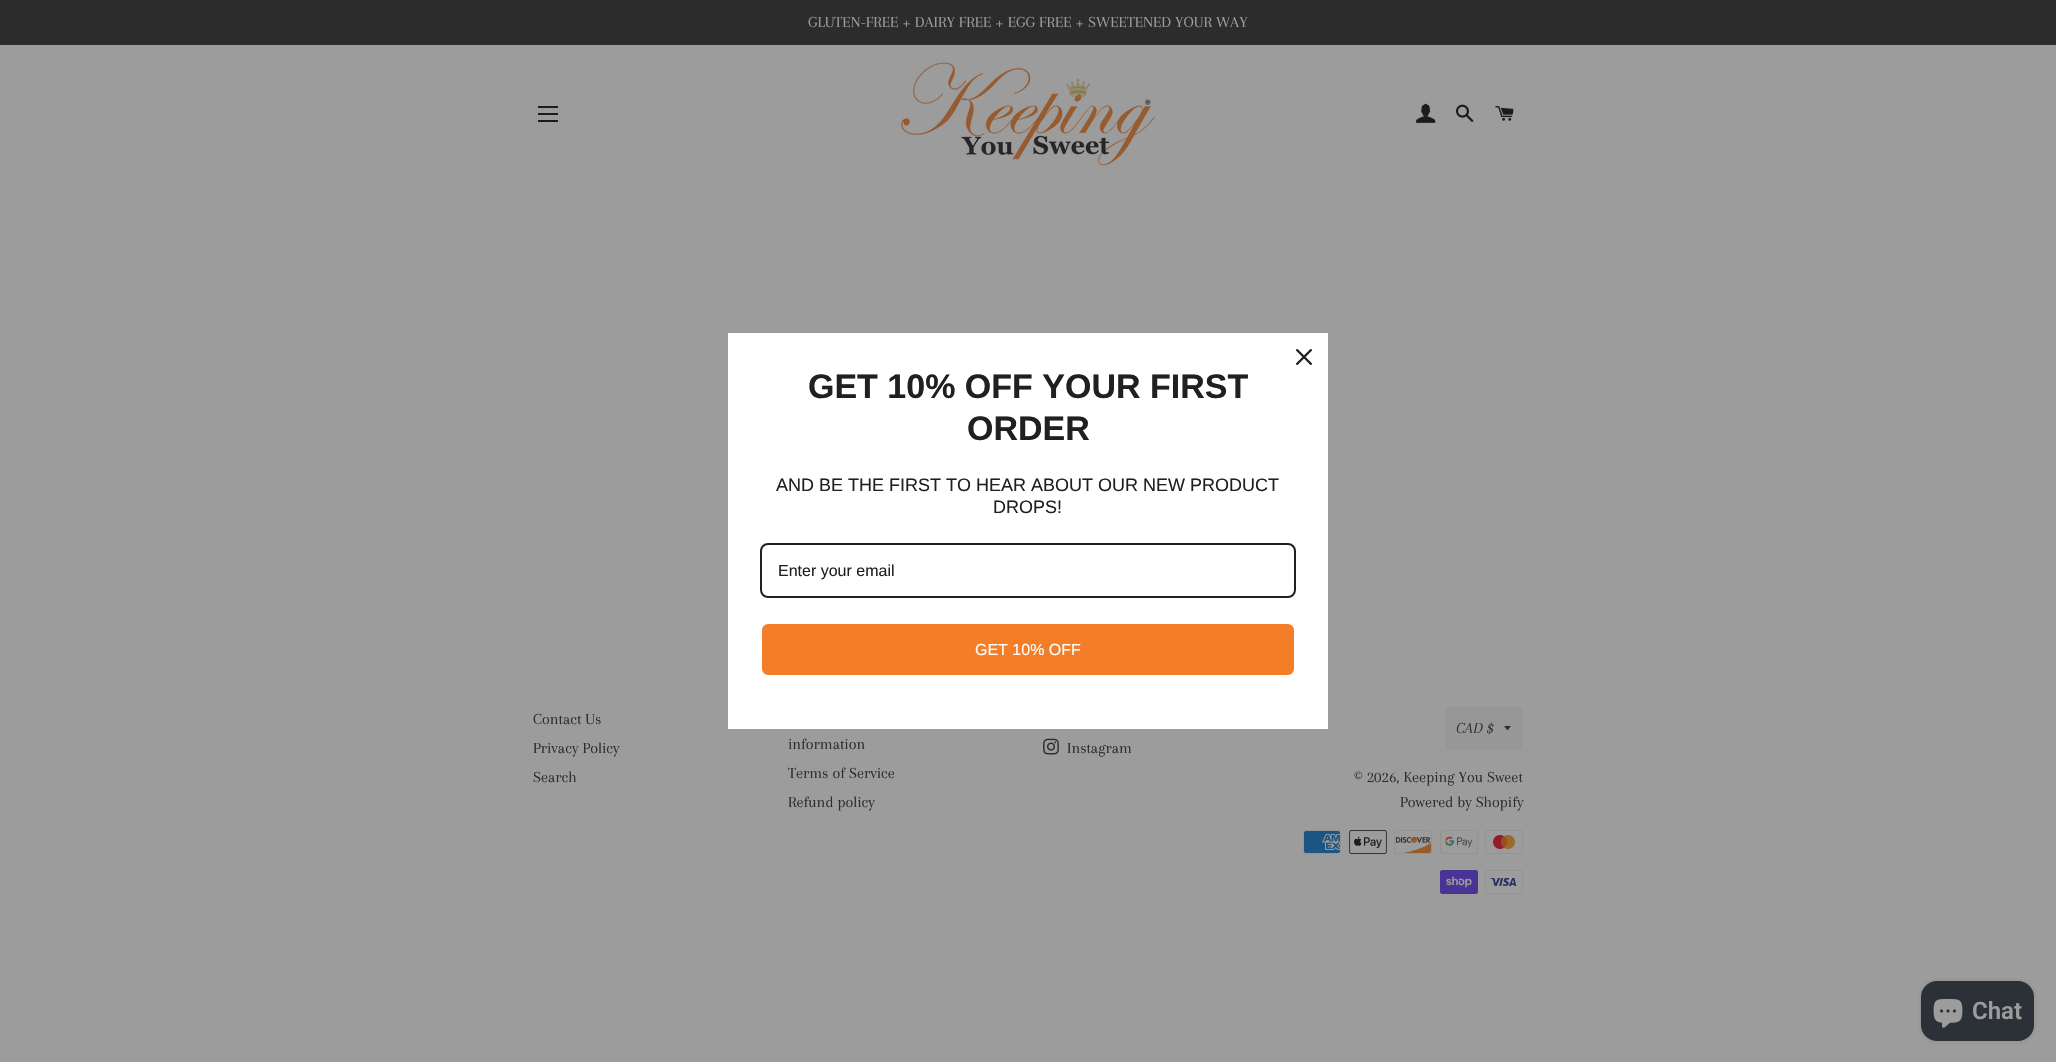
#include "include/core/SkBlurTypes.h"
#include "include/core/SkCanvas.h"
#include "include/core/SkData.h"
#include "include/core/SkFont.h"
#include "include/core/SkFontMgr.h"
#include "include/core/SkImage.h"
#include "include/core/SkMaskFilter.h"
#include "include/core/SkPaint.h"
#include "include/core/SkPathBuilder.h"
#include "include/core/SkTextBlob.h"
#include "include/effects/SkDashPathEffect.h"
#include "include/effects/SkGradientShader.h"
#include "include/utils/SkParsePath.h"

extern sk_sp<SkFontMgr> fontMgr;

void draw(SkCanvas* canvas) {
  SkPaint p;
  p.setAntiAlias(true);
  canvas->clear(SkColorSetRGB(156, 156, 156));
  p.setColor(SkColorSetRGB(44, 44, 45));
  canvas->drawRect(SkRect::MakeLTRB(0, 0, 2056, 45), p);
  p.setColor(SkColorSetRGB(28, 28, 28));
  canvas->drawRect(SkRect::MakeLTRB(538, 106, 558, 108), p);
  canvas->drawRect(SkRect::MakeLTRB(538, 113, 558, 115), p);
  canvas->drawRect(SkRect::MakeLTRB(538, 120, 558, 122), p);
  canvas->drawImageRect(SkImages::DeferredFromEncodedData(SkData::MakeFromFileName("images/1.png")), SkRect::MakeLTRB(901, 62, 1155, 166), SkSamplingOptions());
  canvas->drawImageRect(SkImages::DeferredFromEncodedData(SkData::MakeFromFileName("images/2.png")), SkRect::MakeLTRB(1416, 103, 1436, 123), SkSamplingOptions());
  canvas->drawImageRect(SkImages::DeferredFromEncodedData(SkData::MakeFromFileName("images/3.png")), SkRect::MakeLTRB(1456, 104, 1474, 122), SkSamplingOptions());
  canvas->drawImageRect(SkImages::DeferredFromEncodedData(SkData::MakeFromFileName("images/4.png")), SkRect::MakeLTRB(1495, 106, 1514, 121), SkSamplingOptions());
  p.setColor(SK_ColorWHITE);
  canvas->drawRect(SkRect::MakeLTRB(728, 333, 1328, 729), p);
  canvas->drawImageRect(SkImages::DeferredFromEncodedData(SkData::MakeFromFileName("images/5.png")), SkRect::MakeLTRB(1296, 349, 1312, 365), SkSamplingOptions());
  p.setStyle(SkPaint::kStroke_Style);
  p.setStrokeWidth(2);
  p.setColor(SkColorSetRGB(31, 32, 33));
  canvas->drawRoundRect(SkRect::MakeLTRB(761, 544, 1295, 597), 7, 7, p);
  p.setStyle(SkPaint::kFill_Style);
  p.setColor(SkColorSetRGB(244, 125, 39));
  canvas->drawRoundRect(SkRect::MakeLTRB(761, 623, 1295, 676), 7, 7, p);
  p.setStyle(SkPaint::kStroke_Style);
  p.setColor(SK_ColorWHITE);
  canvas->drawRoundRect(SkRect::MakeLTRB(761, 623, 1295, 676), 7, 7, p);
  canvas->drawImageRect(SkImages::DeferredFromEncodedData(SkData::MakeFromFileName("images/6.png")), SkRect::MakeLTRB(1043, 738, 1059, 755), SkSamplingOptions());
  p.setStyle(SkPaint::kFill_Style);
  p.setColor(SkColorSetRGB(151, 151, 151));
  canvas->drawRect(SkRect::MakeLTRB(1445, 707, 1523, 750), p);
  p.setColor(SkColorSetRGB(44, 44, 45));
  canvas->drawPath(SkPathBuilder().moveTo(1504, 726).cubicTo(1508.5f, 731.5f, 1506.5f, 731.5f, 1511, 726).close().detach(), p);
  canvas->drawImageRect(SkImages::DeferredFromEncodedData(SkData::MakeFromFileName("images/7.png")), SkRect::MakeLTRB(1303, 830, 1341, 854), SkSamplingOptions());
  canvas->drawImageRect(SkImages::DeferredFromEncodedData(SkData::MakeFromFileName("images/8.png")), SkRect::MakeLTRB(1349, 830, 1387, 854), SkSamplingOptions());
  canvas->drawImageRect(SkImages::DeferredFromEncodedData(SkData::MakeFromFileName("images/9.png")), SkRect::MakeLTRB(1394, 830, 1432, 854), SkSamplingOptions());
  canvas->drawImageRect(SkImages::DeferredFromEncodedData(SkData::MakeFromFileName("images/10.png")), SkRect::MakeLTRB(1440, 830, 1478, 854), SkSamplingOptions());
  canvas->drawImageRect(SkImages::DeferredFromEncodedData(SkData::MakeFromFileName("images/11.png")), SkRect::MakeLTRB(1485, 830, 1523, 854), SkSamplingOptions());
  canvas->drawImageRect(SkImages::DeferredFromEncodedData(SkData::MakeFromFileName("images/12.png")), SkRect::MakeLTRB(1440, 870, 1478, 894), SkSamplingOptions());
  canvas->drawImageRect(SkImages::DeferredFromEncodedData(SkData::MakeFromFileName("images/13.png")), SkRect::MakeLTRB(1485, 870, 1523, 894), SkSamplingOptions());
  p.setColor(SkColorSetARGB(38, 28, 28, 28));
  p.setMaskFilter(SkMaskFilter::MakeBlur(kNormal_SkBlurStyle, 2.5f));
  canvas->drawRoundRect(SkRect::MakeLTRB(1921, 981, 2034, 1041), 16, 16, p);
  p.setMaskFilter(nullptr);
  p.setColor(SkColorSetRGB(44, 49, 55));
  canvas->drawRoundRect(SkRect::MakeLTRB(1921, 981, 2034, 1041), 16, 16, p);
  canvas->drawImageRect(SkImages::DeferredFromEncodedData(SkData::MakeFromFileName("images/14.png")), SkRect::MakeLTRB(1933, 999, 1963, 1028), SkSamplingOptions());
  SkFont font1(fontMgr->matchFamilyStyle("Arapey", SkFontStyle::Normal()), 16);
  font1.setSubpixel(true);
  p.setColor(SkColorSetRGB(156, 156, 156));
  canvas->drawString("GLUTEN-FREE + DAIRY FREE + EGG FREE + SWEETENED YOUR WAY", 808, 27, font1, p);
  SkFont font2(fontMgr->matchFamilyStyle("Liberation Sans", SkFontStyle::Bold()), 34);
  font2.setSubpixel(true);
  p.setColor(SkColorSetRGB(31, 32, 33));
  canvas->drawString("GET 10% OFF YOUR FIRST", 808, 398, font2, p);
  canvas->drawString("ORDER", 967, 440, font2, p);
  SkFont font3(fontMgr->matchFamilyStyle("Liberation Sans", SkFontStyle::Normal()), 18);
  font3.setSubpixel(true);
  canvas->drawString("AND BE THE FIRST TO HEAR ABOUT OUR NEW PRODUCT", 776, 491, font3, p);
  canvas->drawString("DROPS!", 993, 513, font3, p);
  SkFont font4(fontMgr->matchFamilyStyle("Liberation Sans", SkFontStyle::Normal()), 16);
  font4.setSubpixel(true);
  canvas->drawString("Enter your email", 778, 576, font4, p);
  p.setColor(SK_ColorWHITE);
  canvas->drawString("GET 10% OFF", 975, 655, font4, p);
  p.setColor(SkColorSetRGB(44, 44, 45));
  canvas->drawString("Contact Us", 533, 724, font1, p);
  canvas->drawString("Privacy Policy", 533, 753, font1, p);
  canvas->drawString("Search", 533, 782, font1, p);
  canvas->drawString("information", 788, 749, font1, p);
  canvas->drawString("Terms of Service", 788, 778, font1, p);
  canvas->drawString("Refund policy", 788, 807, font1, p);
  canvas->drawString("Instagram", 1067, 753, font1, p);
  SkFont font5(fontMgr->matchFamilyStyle("Arapey", SkFontStyle::Italic()), 16);
  font5.setSubpixel(true);
  canvas->drawString("CAD $", 1456, 733, font5, p);
  canvas->drawString("© 2026, Keeping You Sweet", 1354, 782, font1, p);
  canvas->drawString("Powered by Shopify", 1400, 807, font1, p);
  SkFont font6(fontMgr->matchFamilyStyle("Roboto", SkFontStyle(600, SkFontStyle::kNormal_Width, SkFontStyle::kUpright_Slant)), 24);
  font6.setSubpixel(true);
  p.setColor(SkColorSetRGB(156, 156, 156));
  canvas->drawString("Chat", 1972, 1019, font6, p);
}
